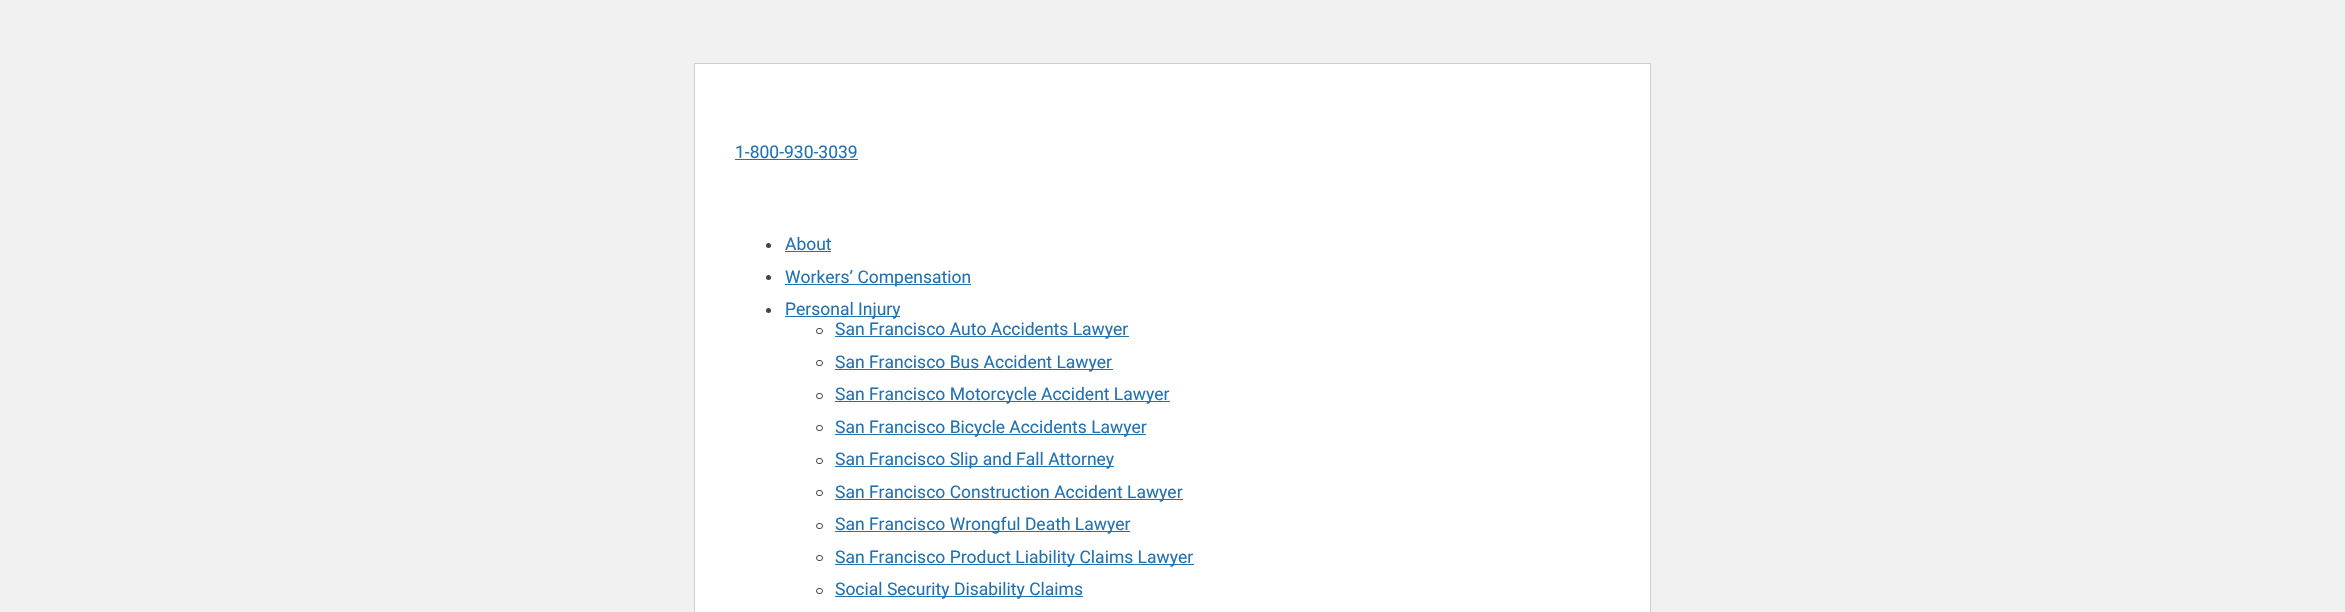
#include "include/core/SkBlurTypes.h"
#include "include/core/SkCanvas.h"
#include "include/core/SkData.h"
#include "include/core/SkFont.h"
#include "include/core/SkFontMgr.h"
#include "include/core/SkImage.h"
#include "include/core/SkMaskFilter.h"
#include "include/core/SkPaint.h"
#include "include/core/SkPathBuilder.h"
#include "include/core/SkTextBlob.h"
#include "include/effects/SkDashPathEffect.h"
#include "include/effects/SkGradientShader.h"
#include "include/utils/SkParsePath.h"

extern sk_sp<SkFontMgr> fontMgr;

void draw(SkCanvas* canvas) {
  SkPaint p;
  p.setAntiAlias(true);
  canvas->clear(SkColorSetRGB(241, 241, 241));
  p.setColor(SK_ColorWHITE);
  canvas->drawRect(SkRect::MakeLTRB(694.5f, 63.5f, 1650.5f, 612.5f), p);
  p.setStyle(SkPaint::kStroke_Style);
  p.setStrokeWidth(1);
  p.setColor(SkColorSetRGB(204, 208, 212));
  canvas->drawRect(SkRect::MakeLTRB(694.5f, 63.5f, 1650.5f, 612.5f), p);
  p.setStyle(SkPaint::kFill_Style);
  p.setColor(SkColorSetRGB(34, 113, 177));
  canvas->drawRect(SkRect::MakeLTRB(735, 159, 858, 160), p);
  p.setColor(SkColorSetRGB(68, 68, 68));
  canvas->drawCircle(768.5f, 245.5f, 2.5f, p);
  p.setColor(SkColorSetRGB(34, 113, 177));
  canvas->drawRect(SkRect::MakeLTRB(785, 251, 831, 252), p);
  p.setColor(SkColorSetRGB(68, 68, 68));
  canvas->drawCircle(768.5f, 277.5f, 2.5f, p);
  p.setColor(SkColorSetRGB(34, 113, 177));
  canvas->drawRect(SkRect::MakeLTRB(785, 284, 971, 285), p);
  p.setColor(SkColorSetRGB(68, 68, 68));
  canvas->drawCircle(768.5f, 310.5f, 2.5f, p);
  p.setColor(SkColorSetRGB(34, 113, 177));
  canvas->drawRect(SkRect::MakeLTRB(785, 316, 900, 317), p);
  p.setStyle(SkPaint::kStroke_Style);
  p.setColor(SkColorSetRGB(68, 68, 68));
  canvas->drawRoundRect(SkRect::MakeLTRB(816.5f, 328.5f, 822.5f, 333.5f), 2.5f, 2.5f, p);
  p.setStyle(SkPaint::kFill_Style);
  p.setColor(SkColorSetRGB(34, 113, 177));
  canvas->drawRect(SkRect::MakeLTRB(835, 336, 1129, 337), p);
  p.setStyle(SkPaint::kStroke_Style);
  p.setColor(SkColorSetRGB(68, 68, 68));
  canvas->drawRoundRect(SkRect::MakeLTRB(816.5f, 360.5f, 822.5f, 365.5f), 2.5f, 2.5f, p);
  p.setStyle(SkPaint::kFill_Style);
  p.setColor(SkColorSetRGB(34, 113, 177));
  canvas->drawRect(SkRect::MakeLTRB(835, 369, 1113, 370), p);
  p.setStyle(SkPaint::kStroke_Style);
  p.setColor(SkColorSetRGB(68, 68, 68));
  canvas->drawRoundRect(SkRect::MakeLTRB(816.5f, 393.5f, 822.5f, 398.5f), 2.5f, 2.5f, p);
  p.setStyle(SkPaint::kFill_Style);
  p.setColor(SkColorSetRGB(34, 113, 177));
  canvas->drawRect(SkRect::MakeLTRB(835, 401, 1170, 402), p);
  p.setStyle(SkPaint::kStroke_Style);
  p.setColor(SkColorSetRGB(68, 68, 68));
  canvas->drawRoundRect(SkRect::MakeLTRB(816.5f, 425.5f, 822.5f, 430.5f), 2.5f, 2.5f, p);
  p.setStyle(SkPaint::kFill_Style);
  p.setColor(SkColorSetRGB(34, 113, 177));
  canvas->drawRect(SkRect::MakeLTRB(835, 434, 1146, 435), p);
  p.setStyle(SkPaint::kStroke_Style);
  p.setColor(SkColorSetRGB(68, 68, 68));
  canvas->drawRoundRect(SkRect::MakeLTRB(816.5f, 458.5f, 822.5f, 463.5f), 2.5f, 2.5f, p);
  p.setStyle(SkPaint::kFill_Style);
  p.setColor(SkColorSetRGB(34, 113, 177));
  canvas->drawRect(SkRect::MakeLTRB(835, 466, 1114, 467), p);
  p.setStyle(SkPaint::kStroke_Style);
  p.setColor(SkColorSetRGB(68, 68, 68));
  canvas->drawRoundRect(SkRect::MakeLTRB(816.5f, 490.5f, 822.5f, 495.5f), 2.5f, 2.5f, p);
  p.setStyle(SkPaint::kFill_Style);
  p.setColor(SkColorSetRGB(34, 113, 177));
  canvas->drawRect(SkRect::MakeLTRB(835, 499, 1183, 500), p);
  p.setStyle(SkPaint::kStroke_Style);
  p.setColor(SkColorSetRGB(68, 68, 68));
  canvas->drawRoundRect(SkRect::MakeLTRB(816.5f, 523.5f, 822.5f, 528.5f), 2.5f, 2.5f, p);
  p.setStyle(SkPaint::kFill_Style);
  p.setColor(SkColorSetRGB(34, 113, 177));
  canvas->drawRect(SkRect::MakeLTRB(835, 531, 1130, 532), p);
  p.setStyle(SkPaint::kStroke_Style);
  p.setColor(SkColorSetRGB(68, 68, 68));
  canvas->drawRoundRect(SkRect::MakeLTRB(816.5f, 555.5f, 822.5f, 560.5f), 2.5f, 2.5f, p);
  p.setStyle(SkPaint::kFill_Style);
  p.setColor(SkColorSetRGB(34, 113, 177));
  canvas->drawRect(SkRect::MakeLTRB(835, 564, 1194, 565), p);
  p.setStyle(SkPaint::kStroke_Style);
  p.setColor(SkColorSetRGB(68, 68, 68));
  canvas->drawRoundRect(SkRect::MakeLTRB(816.5f, 588.5f, 822.5f, 593.5f), 2.5f, 2.5f, p);
  p.setStyle(SkPaint::kFill_Style);
  p.setColor(SkColorSetRGB(34, 113, 177));
  canvas->drawRect(SkRect::MakeLTRB(835, 596, 1083, 597), p);
  SkFont font1(fontMgr->matchFamilyStyle("Roboto", SkFontStyle::Normal()), 17.5f);
  font1.setSubpixel(true);
  canvas->drawString("1-800-930-3039", 735, 158, font1, p);
  canvas->drawString("About", 785, 250, font1, p);
  canvas->drawString("Workers’ Compensation", 785, 283, font1, p);
  canvas->drawString("Personal Injury", 785, 315, font1, p);
  canvas->drawString("San Francisco Auto Accidents Lawyer", 835, 335, font1, p);
  canvas->drawString("San Francisco Bus Accident Lawyer", 835, 368, font1, p);
  canvas->drawString("San Francisco Motorcycle Accident Lawyer", 835, 400, font1, p);
  canvas->drawString("San Francisco Bicycle Accidents Lawyer", 835, 433, font1, p);
  canvas->drawString("San Francisco Slip and Fall Attorney", 835, 465, font1, p);
  canvas->drawString("San Francisco Construction Accident Lawyer", 835, 498, font1, p);
  canvas->drawString("San Francisco Wrongful Death Lawyer", 835, 530, font1, p);
  canvas->drawString("San Francisco Product Liability Claims Lawyer", 835, 563, font1, p);
  canvas->drawString("Social Security Disability Claims", 835, 595, font1, p);
}
